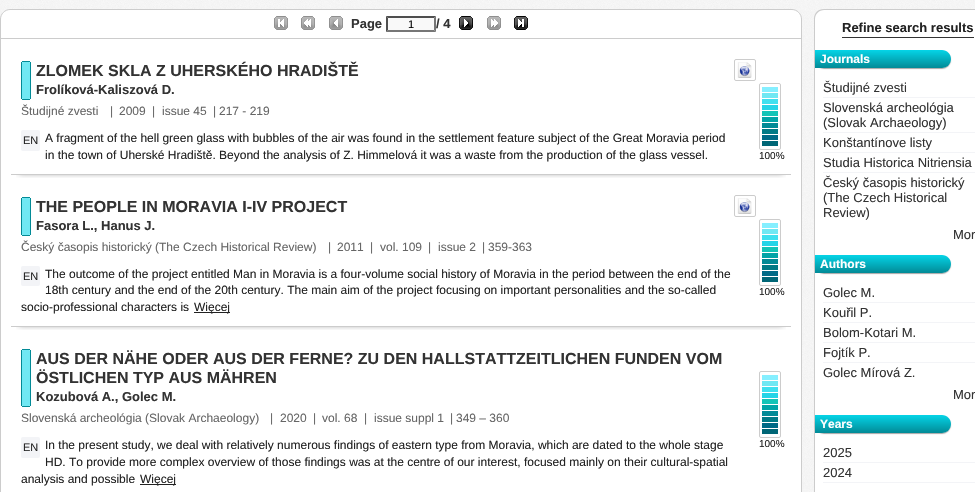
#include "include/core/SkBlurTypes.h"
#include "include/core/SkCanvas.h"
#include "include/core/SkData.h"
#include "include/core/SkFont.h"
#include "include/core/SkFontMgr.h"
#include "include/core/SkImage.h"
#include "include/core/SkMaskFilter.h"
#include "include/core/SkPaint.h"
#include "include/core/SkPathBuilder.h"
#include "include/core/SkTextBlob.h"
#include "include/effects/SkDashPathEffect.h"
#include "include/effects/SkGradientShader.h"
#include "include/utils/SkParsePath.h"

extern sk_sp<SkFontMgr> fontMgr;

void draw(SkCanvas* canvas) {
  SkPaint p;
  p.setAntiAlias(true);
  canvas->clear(SK_ColorWHITE);
  canvas->drawImageRect(SkImages::DeferredFromEncodedData(SkData::MakeFromFileName("images/1.png")), SkRect::MakeLTRB(0, 0, 975, 492), SkSamplingOptions());
  p.setColor(SK_ColorWHITE);
  canvas->drawPath(SkPathBuilder().moveTo(10, 9.5f).lineTo(792, 9.5f).cubicTo(797, 9.5f, 801.5f, 14, 801.5f, 19).lineTo(801.5f, 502.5f).lineTo(0.5f, 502.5f).lineTo(0.5f, 19).cubicTo(0.5f, 14, 5, 9.5f, 10, 9.5f).close().detach(), p);
  p.setStyle(SkPaint::kStroke_Style);
  p.setStrokeWidth(1);
  p.setColor(SkColorSetRGB(204, 204, 204));
  canvas->drawPath(SkPathBuilder().moveTo(10, 9.5f).lineTo(792, 9.5f).cubicTo(797, 9.5f, 801.5f, 14, 801.5f, 19).lineTo(801.5f, 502.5f).lineTo(0.5f, 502.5f).lineTo(0.5f, 19).cubicTo(0.5f, 14, 5, 9.5f, 10, 9.5f).close().detach(), p);
  p.setStyle(SkPaint::kFill_Style);
  canvas->drawRect(SkRect::MakeLTRB(1, 38, 801, 39), p);
  canvas->drawImageRect(SkImages::DeferredFromEncodedData(SkData::MakeFromFileName("images/2.png")), SkRect::MakeLTRB(274, 16, 288, 30), SkSamplingOptions());
  canvas->drawImageRect(SkImages::DeferredFromEncodedData(SkData::MakeFromFileName("images/3.png")), SkRect::MakeLTRB(301, 16, 315, 30), SkSamplingOptions());
  canvas->drawImageRect(SkImages::DeferredFromEncodedData(SkData::MakeFromFileName("images/4.png")), SkRect::MakeLTRB(329, 16, 343, 30), SkSamplingOptions());
  p.setColor(SkColorSetRGB(249, 249, 249));
  canvas->drawRect(SkRect::MakeLTRB(386, 16, 436, 32), p);
  p.setColor(SkColorSetRGB(79, 79, 79));
  canvas->drawPath(SkPathBuilder().moveTo(386, 16).lineTo(436, 16).lineTo(434, 18).lineTo(388, 18).close().detach(), p);
  p.setColor(SkColorSetRGB(118, 118, 118));
  canvas->drawPath(SkPathBuilder().moveTo(436, 16).lineTo(436, 32).lineTo(434, 30).lineTo(434, 18).close().detach(), p);
  canvas->drawPath(SkPathBuilder().moveTo(436, 32).lineTo(386, 32).lineTo(388, 30).lineTo(434, 30).close().detach(), p);
  p.setColor(SkColorSetRGB(79, 79, 79));
  canvas->drawPath(SkPathBuilder().moveTo(386, 32).lineTo(386, 16).lineTo(388, 18).lineTo(388, 30).close().detach(), p);
  canvas->drawImageRect(SkImages::DeferredFromEncodedData(SkData::MakeFromFileName("images/5.png")), SkRect::MakeLTRB(459, 16, 473, 30), SkSamplingOptions());
  canvas->drawImageRect(SkImages::DeferredFromEncodedData(SkData::MakeFromFileName("images/6.png")), SkRect::MakeLTRB(487, 16, 501, 30), SkSamplingOptions());
  canvas->drawImageRect(SkImages::DeferredFromEncodedData(SkData::MakeFromFileName("images/7.png")), SkRect::MakeLTRB(514, 16, 528, 30), SkSamplingOptions());
  canvas->save();
  canvas->clipRect(SkRect::MakeLTRB(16, 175, 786, 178));
  p.setColor(SkColorSetARGB(128, 0, 0, 0));
  p.setMaskFilter(SkMaskFilter::MakeBlur(kNormal_SkBlurStyle, 3));
  canvas->drawRect(SkRect::MakeLTRB(19, 65, 783, 173), p);
  p.setMaskFilter(nullptr);
  canvas->restore();
  p.setColor(SkColorSetRGB(204, 204, 204));
  canvas->drawRect(SkRect::MakeLTRB(11, 174, 791, 175), p);
  p.setColor(SkColorSetRGB(112, 232, 243));
  canvas->drawPath(SkPathBuilder().moveTo(23, 62).lineTo(29, 62).cubicTo(29.5f, 62, 30, 62.5f, 30, 63).lineTo(30, 81).lineTo(22, 81).lineTo(22, 63).cubicTo(22, 62.5f, 22.5f, 62, 23, 62).close().detach(), p);
  p.setColor(SkColorSetRGB(2, 138, 150));
  canvas->drawRect(SkRect::MakeLTRB(22, 61, 30, 62), p);
  canvas->drawRect(SkRect::MakeLTRB(30, 62, 31, 99), p);
  canvas->drawRect(SkRect::MakeLTRB(21, 62, 22, 99), p);
  p.setStyle(SkPaint::kStroke_Style);
  p.setColor(SkColorSetRGB(204, 204, 204));
  canvas->drawRoundRect(SkRect::MakeLTRB(734.5f, 59.5f, 755.5f, 80.5f), 1.5f, 1.5f, p);
  canvas->drawImageRect(SkImages::DeferredFromEncodedData(SkData::MakeFromFileName("images/8.png")), SkRect::MakeLTRB(737, 62, 752, 78), SkSamplingOptions());
  canvas->drawRoundRect(SkRect::MakeLTRB(759.5f, 83.5f, 780.5f, 149.5f), 1.5f, 1.5f, p);
  p.setStyle(SkPaint::kFill_Style);
  p.setColor(SkColorSetRGB(133, 239, 255));
  canvas->drawRect(SkRect::MakeLTRB(762, 87, 778, 92), p);
  p.setColor(SkColorSetRGB(112, 232, 243));
  canvas->drawRect(SkRect::MakeLTRB(762, 93, 778, 98), p);
  p.setColor(SkColorSetRGB(63, 224, 239));
  canvas->drawRect(SkRect::MakeLTRB(762, 99, 778, 104), p);
  p.setColor(SkColorSetRGB(37, 212, 231));
  canvas->drawRect(SkRect::MakeLTRB(762, 105, 778, 110), p);
  p.setColor(SkColorSetRGB(20, 196, 183));
  canvas->drawRect(SkRect::MakeLTRB(762, 111, 778, 116), p);
  p.setColor(SkColorSetRGB(3, 164, 167));
  canvas->drawRect(SkRect::MakeLTRB(762, 117, 778, 122), p);
  p.setColor(SkColorSetRGB(2, 138, 150));
  canvas->drawRect(SkRect::MakeLTRB(762, 123, 778, 128), p);
  p.setColor(SkColorSetRGB(1, 122, 134));
  canvas->drawRect(SkRect::MakeLTRB(762, 129, 778, 134), p);
  p.setColor(SkColorSetRGB(0, 106, 134));
  canvas->drawRect(SkRect::MakeLTRB(762, 135, 778, 140), p);
  p.setColor(SkColorSetRGB(0, 102, 118));
  canvas->drawRect(SkRect::MakeLTRB(762, 141, 778, 146), p);
  p.setColor(SkColorSetRGB(112, 232, 243));
  canvas->drawPath(SkPathBuilder().moveTo(22, 80).lineTo(30, 80).lineTo(30, 98).cubicTo(30, 98.5f, 29.5f, 99, 29, 99).lineTo(23, 99).cubicTo(22.5f, 99, 22, 98.5f, 22, 98).close().detach(), p);
  p.setColor(SkColorSetRGB(2, 138, 150));
  canvas->drawRect(SkRect::MakeLTRB(22, 99, 30, 100), p);
  p.setColor(SkColorSetRGB(243, 244, 247));
  canvas->drawRoundRect(SkRect::MakeLTRB(21, 130, 40, 151), 2, 2, p);
  canvas->save();
  canvas->clipRect(SkRect::MakeLTRB(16, 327, 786, 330));
  p.setColor(SkColorSetARGB(128, 0, 0, 0));
  p.setMaskFilter(SkMaskFilter::MakeBlur(kNormal_SkBlurStyle, 3));
  canvas->drawRect(SkRect::MakeLTRB(19, 201, 783, 325), p);
  p.setMaskFilter(nullptr);
  canvas->restore();
  p.setColor(SkColorSetRGB(204, 204, 204));
  canvas->drawRect(SkRect::MakeLTRB(11, 326, 791, 327), p);
  p.setColor(SkColorSetRGB(112, 232, 243));
  canvas->drawPath(SkPathBuilder().moveTo(23, 198).lineTo(29, 198).cubicTo(29.5f, 198, 30, 198.5f, 30, 199).lineTo(30, 217).lineTo(22, 217).lineTo(22, 199).cubicTo(22, 198.5f, 22.5f, 198, 23, 198).close().detach(), p);
  p.setColor(SkColorSetRGB(2, 138, 150));
  canvas->drawRect(SkRect::MakeLTRB(22, 197, 30, 198), p);
  canvas->drawRect(SkRect::MakeLTRB(30, 198, 31, 235), p);
  canvas->drawRect(SkRect::MakeLTRB(21, 198, 22, 235), p);
  p.setStyle(SkPaint::kStroke_Style);
  p.setColor(SkColorSetRGB(204, 204, 204));
  canvas->drawRoundRect(SkRect::MakeLTRB(734.5f, 195.5f, 755.5f, 216.5f), 1.5f, 1.5f, p);
  canvas->drawImageRect(SkImages::DeferredFromEncodedData(SkData::MakeFromFileName("images/8.png")), SkRect::MakeLTRB(737, 198, 752, 214), SkSamplingOptions());
  canvas->drawRoundRect(SkRect::MakeLTRB(759.5f, 219.5f, 780.5f, 285.5f), 1.5f, 1.5f, p);
  p.setStyle(SkPaint::kFill_Style);
  p.setColor(SkColorSetRGB(133, 239, 255));
  canvas->drawRect(SkRect::MakeLTRB(762, 223, 778, 228), p);
  p.setColor(SkColorSetRGB(112, 232, 243));
  canvas->drawRect(SkRect::MakeLTRB(762, 229, 778, 234), p);
  p.setColor(SkColorSetRGB(63, 224, 239));
  canvas->drawRect(SkRect::MakeLTRB(762, 235, 778, 240), p);
  p.setColor(SkColorSetRGB(37, 212, 231));
  canvas->drawRect(SkRect::MakeLTRB(762, 241, 778, 246), p);
  p.setColor(SkColorSetRGB(20, 196, 183));
  canvas->drawRect(SkRect::MakeLTRB(762, 247, 778, 252), p);
  p.setColor(SkColorSetRGB(3, 164, 167));
  canvas->drawRect(SkRect::MakeLTRB(762, 253, 778, 258), p);
  p.setColor(SkColorSetRGB(2, 138, 150));
  canvas->drawRect(SkRect::MakeLTRB(762, 259, 778, 264), p);
  p.setColor(SkColorSetRGB(1, 122, 134));
  canvas->drawRect(SkRect::MakeLTRB(762, 265, 778, 270), p);
  p.setColor(SkColorSetRGB(0, 106, 134));
  canvas->drawRect(SkRect::MakeLTRB(762, 271, 778, 276), p);
  p.setColor(SkColorSetRGB(0, 102, 118));
  canvas->drawRect(SkRect::MakeLTRB(762, 277, 778, 282), p);
  p.setColor(SkColorSetRGB(112, 232, 243));
  canvas->drawPath(SkPathBuilder().moveTo(22, 216).lineTo(30, 216).lineTo(30, 234).cubicTo(30, 234.5f, 29.5f, 235, 29, 235).lineTo(23, 235).cubicTo(22.5f, 235, 22, 234.5f, 22, 234).close().detach(), p);
  p.setColor(SkColorSetRGB(2, 138, 150));
  canvas->drawRect(SkRect::MakeLTRB(22, 235, 30, 236), p);
  p.setColor(SkColorSetRGB(243, 244, 247));
  canvas->drawRoundRect(SkRect::MakeLTRB(21, 266, 40, 286), 2, 2, p);
  p.setColor(SkColorSetRGB(34, 34, 34));
  canvas->drawRect(SkRect::MakeLTRB(194, 312, 230, 313), p);
  p.setColor(SkColorSetRGB(112, 232, 243));
  canvas->drawPath(SkPathBuilder().moveTo(23, 350).lineTo(29, 350).cubicTo(29.5f, 350, 30, 350.5f, 30, 351).lineTo(30, 388).lineTo(22, 388).lineTo(22, 351).cubicTo(22, 350.5f, 22.5f, 350, 23, 350).close().detach(), p);
  p.setColor(SkColorSetRGB(2, 138, 150));
  canvas->drawRect(SkRect::MakeLTRB(22, 349, 30, 350), p);
  canvas->drawRect(SkRect::MakeLTRB(30, 350, 31, 406), p);
  canvas->drawRect(SkRect::MakeLTRB(21, 350, 22, 406), p);
  p.setStyle(SkPaint::kStroke_Style);
  p.setColor(SkColorSetRGB(204, 204, 204));
  canvas->drawRoundRect(SkRect::MakeLTRB(759.5f, 371.5f, 780.5f, 437.5f), 1.5f, 1.5f, p);
  p.setStyle(SkPaint::kFill_Style);
  p.setColor(SkColorSetRGB(133, 239, 255));
  canvas->drawRect(SkRect::MakeLTRB(762, 375, 778, 380), p);
  p.setColor(SkColorSetRGB(112, 232, 243));
  canvas->drawRect(SkRect::MakeLTRB(762, 381, 778, 386), p);
  p.setColor(SkColorSetRGB(63, 224, 239));
  canvas->drawRect(SkRect::MakeLTRB(762, 387, 778, 392), p);
  p.setColor(SkColorSetRGB(37, 212, 231));
  canvas->drawRect(SkRect::MakeLTRB(762, 393, 778, 398), p);
  p.setColor(SkColorSetRGB(20, 196, 183));
  canvas->drawRect(SkRect::MakeLTRB(762, 399, 778, 404), p);
  p.setColor(SkColorSetRGB(3, 164, 167));
  canvas->drawRect(SkRect::MakeLTRB(762, 405, 778, 410), p);
  p.setColor(SkColorSetRGB(2, 138, 150));
  canvas->drawRect(SkRect::MakeLTRB(762, 411, 778, 416), p);
  p.setColor(SkColorSetRGB(1, 122, 134));
  canvas->drawRect(SkRect::MakeLTRB(762, 417, 778, 422), p);
  p.setColor(SkColorSetRGB(0, 106, 134));
  canvas->drawRect(SkRect::MakeLTRB(762, 423, 778, 428), p);
  p.setColor(SkColorSetRGB(0, 102, 118));
  canvas->drawRect(SkRect::MakeLTRB(762, 429, 778, 434), p);
  p.setColor(SkColorSetRGB(112, 232, 243));
  canvas->drawPath(SkPathBuilder().moveTo(22, 387).lineTo(30, 387).lineTo(30, 405).cubicTo(30, 405.5f, 29.5f, 406, 29, 406).lineTo(23, 406).cubicTo(22.5f, 406, 22, 405.5f, 22, 405).close().detach(), p);
  p.setColor(SkColorSetRGB(2, 138, 150));
  canvas->drawRect(SkRect::MakeLTRB(22, 406, 30, 407), p);
  p.setColor(SkColorSetRGB(243, 244, 247));
  canvas->drawRoundRect(SkRect::MakeLTRB(21, 437, 40, 458), 2, 2, p);
  p.setColor(SkColorSetRGB(34, 34, 34));
  canvas->drawRect(SkRect::MakeLTRB(140, 484, 176, 485), p);
  p.setColor(SK_ColorWHITE);
  canvas->drawPath(SkPathBuilder().moveTo(824, 10).lineTo(975, 10).cubicTo(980, 10, 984, 14, 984, 19).lineTo(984, 50).lineTo(815, 50).lineTo(815, 19).cubicTo(815, 14, 819, 10, 824, 10).close().detach(), p);
  p.setColor(SkColorSetRGB(204, 204, 204));
  canvas->drawPath(SkPathBuilder(SkPathFillType::kEvenOdd).moveTo(824, 9).lineTo(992, 9).cubicTo(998, 9, 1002, 13, 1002, 19).lineTo(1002, 50).lineTo(814, 50).lineTo(814, 19).cubicTo(814, 13, 818, 9, 824, 9).close().moveTo(824, 10).lineTo(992, 10).cubicTo(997, 10, 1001, 14, 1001, 19).lineTo(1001, 50).lineTo(815, 50).lineTo(815, 19).cubicTo(815, 14, 819, 10, 824, 10).close().detach(), p);
  p.setColor(SkColorSetRGB(51, 51, 51));
  canvas->drawRect(SkRect::MakeLTRB(842, 37, 974, 38), p);
  p.setColor(SK_ColorWHITE);
  canvas->drawRect(SkRect::MakeLTRB(815, 50, 975, 492), p);
  p.setColor(SkColorSetRGB(204, 204, 204));
  canvas->drawPath(SkPathBuilder(SkPathFillType::kEvenOdd).moveTo(814, 50).lineTo(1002, 50).lineTo(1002, 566).cubicTo(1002, 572, 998, 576, 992, 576).lineTo(824, 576).cubicTo(818, 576, 814, 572, 814, 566).close().moveTo(815, 50).lineTo(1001, 50).lineTo(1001, 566).cubicTo(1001, 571, 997, 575, 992, 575).lineTo(824, 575).cubicTo(819, 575, 815, 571, 815, 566).close().detach(), p);
  canvas->save();
  canvas->clipPath(SkPathBuilder(SkPathFillType::kEvenOdd).moveTo(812, 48).lineTo(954, 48).lineTo(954, 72).lineTo(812, 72).close().moveTo(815, 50).lineTo(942, 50).cubicTo(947, 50, 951, 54, 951, 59).cubicTo(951, 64, 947, 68, 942, 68).lineTo(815, 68).close().detach(), true);
  p.setColor(SkColorSetARGB(89, 0, 0, 0));
  p.setMaskFilter(SkMaskFilter::MakeBlur(kNormal_SkBlurStyle, 0.5f));
  canvas->drawRoundRect(SkRect::MakeLTRB(815, 51, 951, 69), 9, 9, p);
  p.setMaskFilter(nullptr);
  canvas->restore();
  {
    const SkColor colors[] = {SkColorSetRGB(5, 212, 231), SkColorSetRGB(2, 138, 150)};
    const float stops[] = {0, 1};
    const SkPoint ends[] = {{883, 50}, {883, 68}};
    p.setShader(SkGradientShader::MakeLinear(ends, colors, stops, 2, SkTileMode::kClamp));
    p.setAlpha(255);
  }
  canvas->drawPath(SkPathBuilder().moveTo(815, 50).lineTo(942, 50).cubicTo(947, 50, 951, 54, 951, 59).cubicTo(951, 64, 947, 68, 942, 68).lineTo(815, 68).close().detach(), p);
  p.setShader(nullptr);
  p.setColor(SkColorSetRGB(243, 244, 247));
  canvas->drawRect(SkRect::MakeLTRB(823, 97, 975, 98), p);
  canvas->drawRect(SkRect::MakeLTRB(823, 132, 975, 133), p);
  canvas->drawRect(SkRect::MakeLTRB(823, 152, 975, 153), p);
  canvas->drawRect(SkRect::MakeLTRB(823, 172, 975, 173), p);
  canvas->save();
  canvas->clipPath(SkPathBuilder(SkPathFillType::kEvenOdd).moveTo(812, 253).lineTo(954, 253).lineTo(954, 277).lineTo(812, 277).close().moveTo(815, 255).lineTo(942, 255).cubicTo(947, 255, 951, 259, 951, 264).cubicTo(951, 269, 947, 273, 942, 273).lineTo(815, 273).close().detach(), true);
  p.setColor(SkColorSetARGB(89, 0, 0, 0));
  p.setMaskFilter(SkMaskFilter::MakeBlur(kNormal_SkBlurStyle, 0.5f));
  canvas->drawRoundRect(SkRect::MakeLTRB(815, 256, 951, 274), 9, 9, p);
  p.setMaskFilter(nullptr);
  canvas->restore();
  {
    const SkColor colors[] = {SkColorSetRGB(5, 212, 231), SkColorSetRGB(2, 138, 150)};
    const float stops[] = {0, 1};
    const SkPoint ends[] = {{883, 255}, {883, 273}};
    p.setShader(SkGradientShader::MakeLinear(ends, colors, stops, 2, SkTileMode::kClamp));
    p.setAlpha(255);
  }
  canvas->drawPath(SkPathBuilder().moveTo(815, 255).lineTo(942, 255).cubicTo(947, 255, 951, 259, 951, 264).cubicTo(951, 269, 947, 273, 942, 273).lineTo(815, 273).close().detach(), p);
  p.setShader(nullptr);
  p.setColor(SkColorSetRGB(243, 244, 247));
  canvas->drawRect(SkRect::MakeLTRB(823, 302, 975, 303), p);
  canvas->drawRect(SkRect::MakeLTRB(823, 322, 975, 323), p);
  canvas->drawRect(SkRect::MakeLTRB(823, 342, 975, 343), p);
  canvas->drawRect(SkRect::MakeLTRB(823, 362, 975, 363), p);
  canvas->save();
  canvas->clipPath(SkPathBuilder(SkPathFillType::kEvenOdd).moveTo(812, 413).lineTo(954, 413).lineTo(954, 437).lineTo(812, 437).close().moveTo(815, 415).lineTo(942, 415).cubicTo(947, 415, 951, 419, 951, 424).cubicTo(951, 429, 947, 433, 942, 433).lineTo(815, 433).close().detach(), true);
  p.setColor(SkColorSetARGB(89, 0, 0, 0));
  p.setMaskFilter(SkMaskFilter::MakeBlur(kNormal_SkBlurStyle, 0.5f));
  canvas->drawRoundRect(SkRect::MakeLTRB(815, 416, 951, 434), 9, 9, p);
  p.setMaskFilter(nullptr);
  canvas->restore();
  {
    const SkColor colors[] = {SkColorSetRGB(5, 212, 231), SkColorSetRGB(2, 138, 150)};
    const float stops[] = {0, 1};
    const SkPoint ends[] = {{883, 415}, {883, 433}};
    p.setShader(SkGradientShader::MakeLinear(ends, colors, stops, 2, SkTileMode::kClamp));
    p.setAlpha(255);
  }
  canvas->drawPath(SkPathBuilder().moveTo(815, 415).lineTo(942, 415).cubicTo(947, 415, 951, 419, 951, 424).cubicTo(951, 429, 947, 433, 942, 433).lineTo(815, 433).close().detach(), p);
  p.setShader(nullptr);
  p.setColor(SkColorSetRGB(243, 244, 247));
  canvas->drawRect(SkRect::MakeLTRB(823, 462, 975, 463), p);
  canvas->drawRect(SkRect::MakeLTRB(823, 482, 975, 483), p);
  SkFont font1(fontMgr->matchFamilyStyle("Liberation Sans", SkFontStyle::Bold()), 13);
  font1.setSubpixel(true);
  p.setColor(SkColorSetRGB(51, 51, 51));
  canvas->drawString("Page", 351, 28, font1, p);
  SkFont font2(fontMgr->matchFamilyStyle("Liberation Sans", SkFontStyle::Normal()), 11);
  font2.setSubpixel(true);
  p.setColor(SK_ColorBLACK);
  canvas->drawString("1", 408, 28, font2, p);
  p.setColor(SkColorSetRGB(51, 51, 51));
  canvas->drawString("/ 4", 436, 28, font1, p);
  SkFont font3(fontMgr->matchFamilyStyle("Liberation Sans", SkFontStyle::Bold()), 16);
  font3.setSubpixel(true);
  canvas->drawString("ZLOMEK SKLA Z UHERSKÉHO HRADIŠTĚ", 36, 76, font3, p);
  SkFont font4(fontMgr->matchFamilyStyle("Liberation Sans", SkFontStyle::Normal()), 10);
  font4.setSubpixel(true);
  p.setColor(SkColorSetRGB(34, 34, 34));
  canvas->drawString("100%", 759, 159, font4, p);
  p.setColor(SkColorSetRGB(51, 51, 51));
  canvas->drawString("Frolíková-Kaliszová D.", 36, 94, font1, p);
  SkFont font5(fontMgr->matchFamilyStyle("Liberation Sans", SkFontStyle::Normal()), 12);
  font5.setSubpixel(true);
  p.setColor(SkColorSetRGB(102, 102, 102));
  canvas->drawString("Študijné zvesti", 21, 115, font5, p);
  canvas->drawString("|", 110, 115, font5, p);
  canvas->drawString("2009", 119, 115, font5, p);
  canvas->drawString("|", 152, 115, font5, p);
  canvas->drawString("issue 45", 162, 115, font5, p);
  canvas->drawString("|", 213, 115, font5, p);
  canvas->drawString("217 - 219", 219, 115, font5, p);
  p.setColor(SkColorSetRGB(34, 34, 34));
  canvas->drawString("EN", 23, 144, font2, p);
  canvas->drawString("A fragment of the hell green glass with bubbles of the air was found in the settlement feature subject of the Great Moravia period", 45, 142, font5, p);
  canvas->drawString("in the town of Uherské Hradiště. Beyond the analysis of Z. Himmelová it was a waste from the production of the glass vessel.", 45, 159, font5, p);
  p.setColor(SkColorSetRGB(51, 51, 51));
  canvas->drawString("THE PEOPLE IN MORAVIA I-IV PROJECT", 36, 212, font3, p);
  p.setColor(SkColorSetRGB(34, 34, 34));
  canvas->drawString("100%", 759, 295, font4, p);
  p.setColor(SkColorSetRGB(51, 51, 51));
  canvas->drawString("Fasora L., Hanus J.", 36, 230, font1, p);
  p.setColor(SkColorSetRGB(102, 102, 102));
  canvas->drawString("Český časopis historický (The Czech Historical Review)", 21, 251, font5, p);
  canvas->drawString("|", 328, 251, font5, p);
  canvas->drawString("2011", 337, 251, font5, p);
  canvas->drawString("|", 370, 251, font5, p);
  canvas->drawString("vol. 109", 380, 251, font5, p);
  canvas->drawString("|", 428, 251, font5, p);
  canvas->drawString("issue 2", 438, 251, font5, p);
  canvas->drawString("|", 482, 251, font5, p);
  canvas->drawString("359-363", 488, 251, font5, p);
  p.setColor(SkColorSetRGB(34, 34, 34));
  canvas->drawString("EN", 23, 280, font2, p);
  canvas->drawString("The outcome of the project entitled Man in Moravia is a four-volume social history of Moravia in the period between the end of the", 45, 278, font5, p);
  canvas->drawString("18th century and the end of the 20th century. The main aim of the project focusing on important personalities and the so-called", 45, 294, font5, p);
  canvas->drawString("socio-professional characters is", 21, 311, font5, p);
  canvas->drawString("Więcej", 194, 311, font5, p);
  p.setColor(SkColorSetRGB(51, 51, 51));
  canvas->drawString("AUS DER NÄHE ODER AUS DER FERNE? ZU DEN HALLSTATTZEITLICHEN FUNDEN VOM", 36, 364, font3, p);
  canvas->drawString("ÖSTLICHEN TYP AUS MÄHREN", 36, 383, font3, p);
  p.setColor(SkColorSetRGB(34, 34, 34));
  canvas->drawString("100%", 759, 447, font4, p);
  p.setColor(SkColorSetRGB(51, 51, 51));
  canvas->drawString("Kozubová A., Golec M.", 36, 401, font1, p);
  p.setColor(SkColorSetRGB(102, 102, 102));
  canvas->drawString("Slovenská archeológia (Slovak Archaeology)", 21, 422, font5, p);
  canvas->drawString("|", 270, 422, font5, p);
  canvas->drawString("2020", 280, 422, font5, p);
  canvas->drawString("|", 313, 422, font5, p);
  canvas->drawString("vol. 68", 322, 422, font5, p);
  canvas->drawString("|", 364, 422, font5, p);
  canvas->drawString("issue suppl 1", 374, 422, font5, p);
  canvas->drawString("|", 450, 422, font5, p);
  canvas->drawString("349 – 360", 456, 422, font5, p);
  p.setColor(SkColorSetRGB(34, 34, 34));
  canvas->drawString("EN", 23, 451, font2, p);
  canvas->drawString("In the present study, we deal with relatively numerous findings of eastern type from Moravia, which are dated to the whole stage", 45, 449, font5, p);
  canvas->drawString("HD. To provide more complex overview of those findings was at the centre of our interest, focused mainly on their cultural-spatial", 45, 466, font5, p);
  canvas->drawString("analysis and possible", 21, 483, font5, p);
  canvas->drawString("Więcej", 140, 483, font5, p);
  canvas->drawString("Refine search results", 842, 32, font1, p);
  SkFont font6(fontMgr->matchFamilyStyle("Liberation Sans", SkFontStyle::Bold()), 12);
  font6.setSubpixel(true);
  p.setColor(SK_ColorWHITE);
  canvas->drawString("Journals", 820, 63, font6, p);
  SkFont font7(fontMgr->matchFamilyStyle("Liberation Sans", SkFontStyle::Normal()), 13);
  font7.setSubpixel(true);
  p.setColor(SkColorSetRGB(51, 51, 51));
  canvas->drawString("Študijné zvesti", 823, 92, font7, p);
  canvas->drawString("Slovenská archeológia", 823, 112, font7, p);
  canvas->drawString("(Slovak Archaeology)", 823, 127, font7, p);
  canvas->drawString("Konštantínove listy", 823, 147, font7, p);
  canvas->drawString("Studia Historica Nitriensia", 823, 167, font7, p);
  canvas->drawString("Český časopis historický", 823, 187, font7, p);
  canvas->drawString("(The Czech Historical", 823, 202, font7, p);
  canvas->drawString("Review)", 823, 217, font7, p);
  canvas->drawString("Mor", 953, 239, font7, p);
  p.setColor(SK_ColorWHITE);
  canvas->drawString("Authors", 820, 268, font6, p);
  p.setColor(SkColorSetRGB(51, 51, 51));
  canvas->drawString("Golec M.", 823, 297, font7, p);
  canvas->drawString("Kouřil P.", 823, 317, font7, p);
  canvas->drawString("Bolom-Kotari M.", 823, 337, font7, p);
  canvas->drawString("Fojtík P.", 823, 357, font7, p);
  canvas->drawString("Golec Mírová Z.", 823, 377, font7, p);
  canvas->drawString("Mor", 953, 399, font7, p);
  p.setColor(SK_ColorWHITE);
  canvas->drawString("Years", 820, 428, font6, p);
  p.setColor(SkColorSetRGB(51, 51, 51));
  canvas->drawString("2025", 823, 457, font7, p);
  canvas->drawString("2024", 823, 477, font7, p);
}
